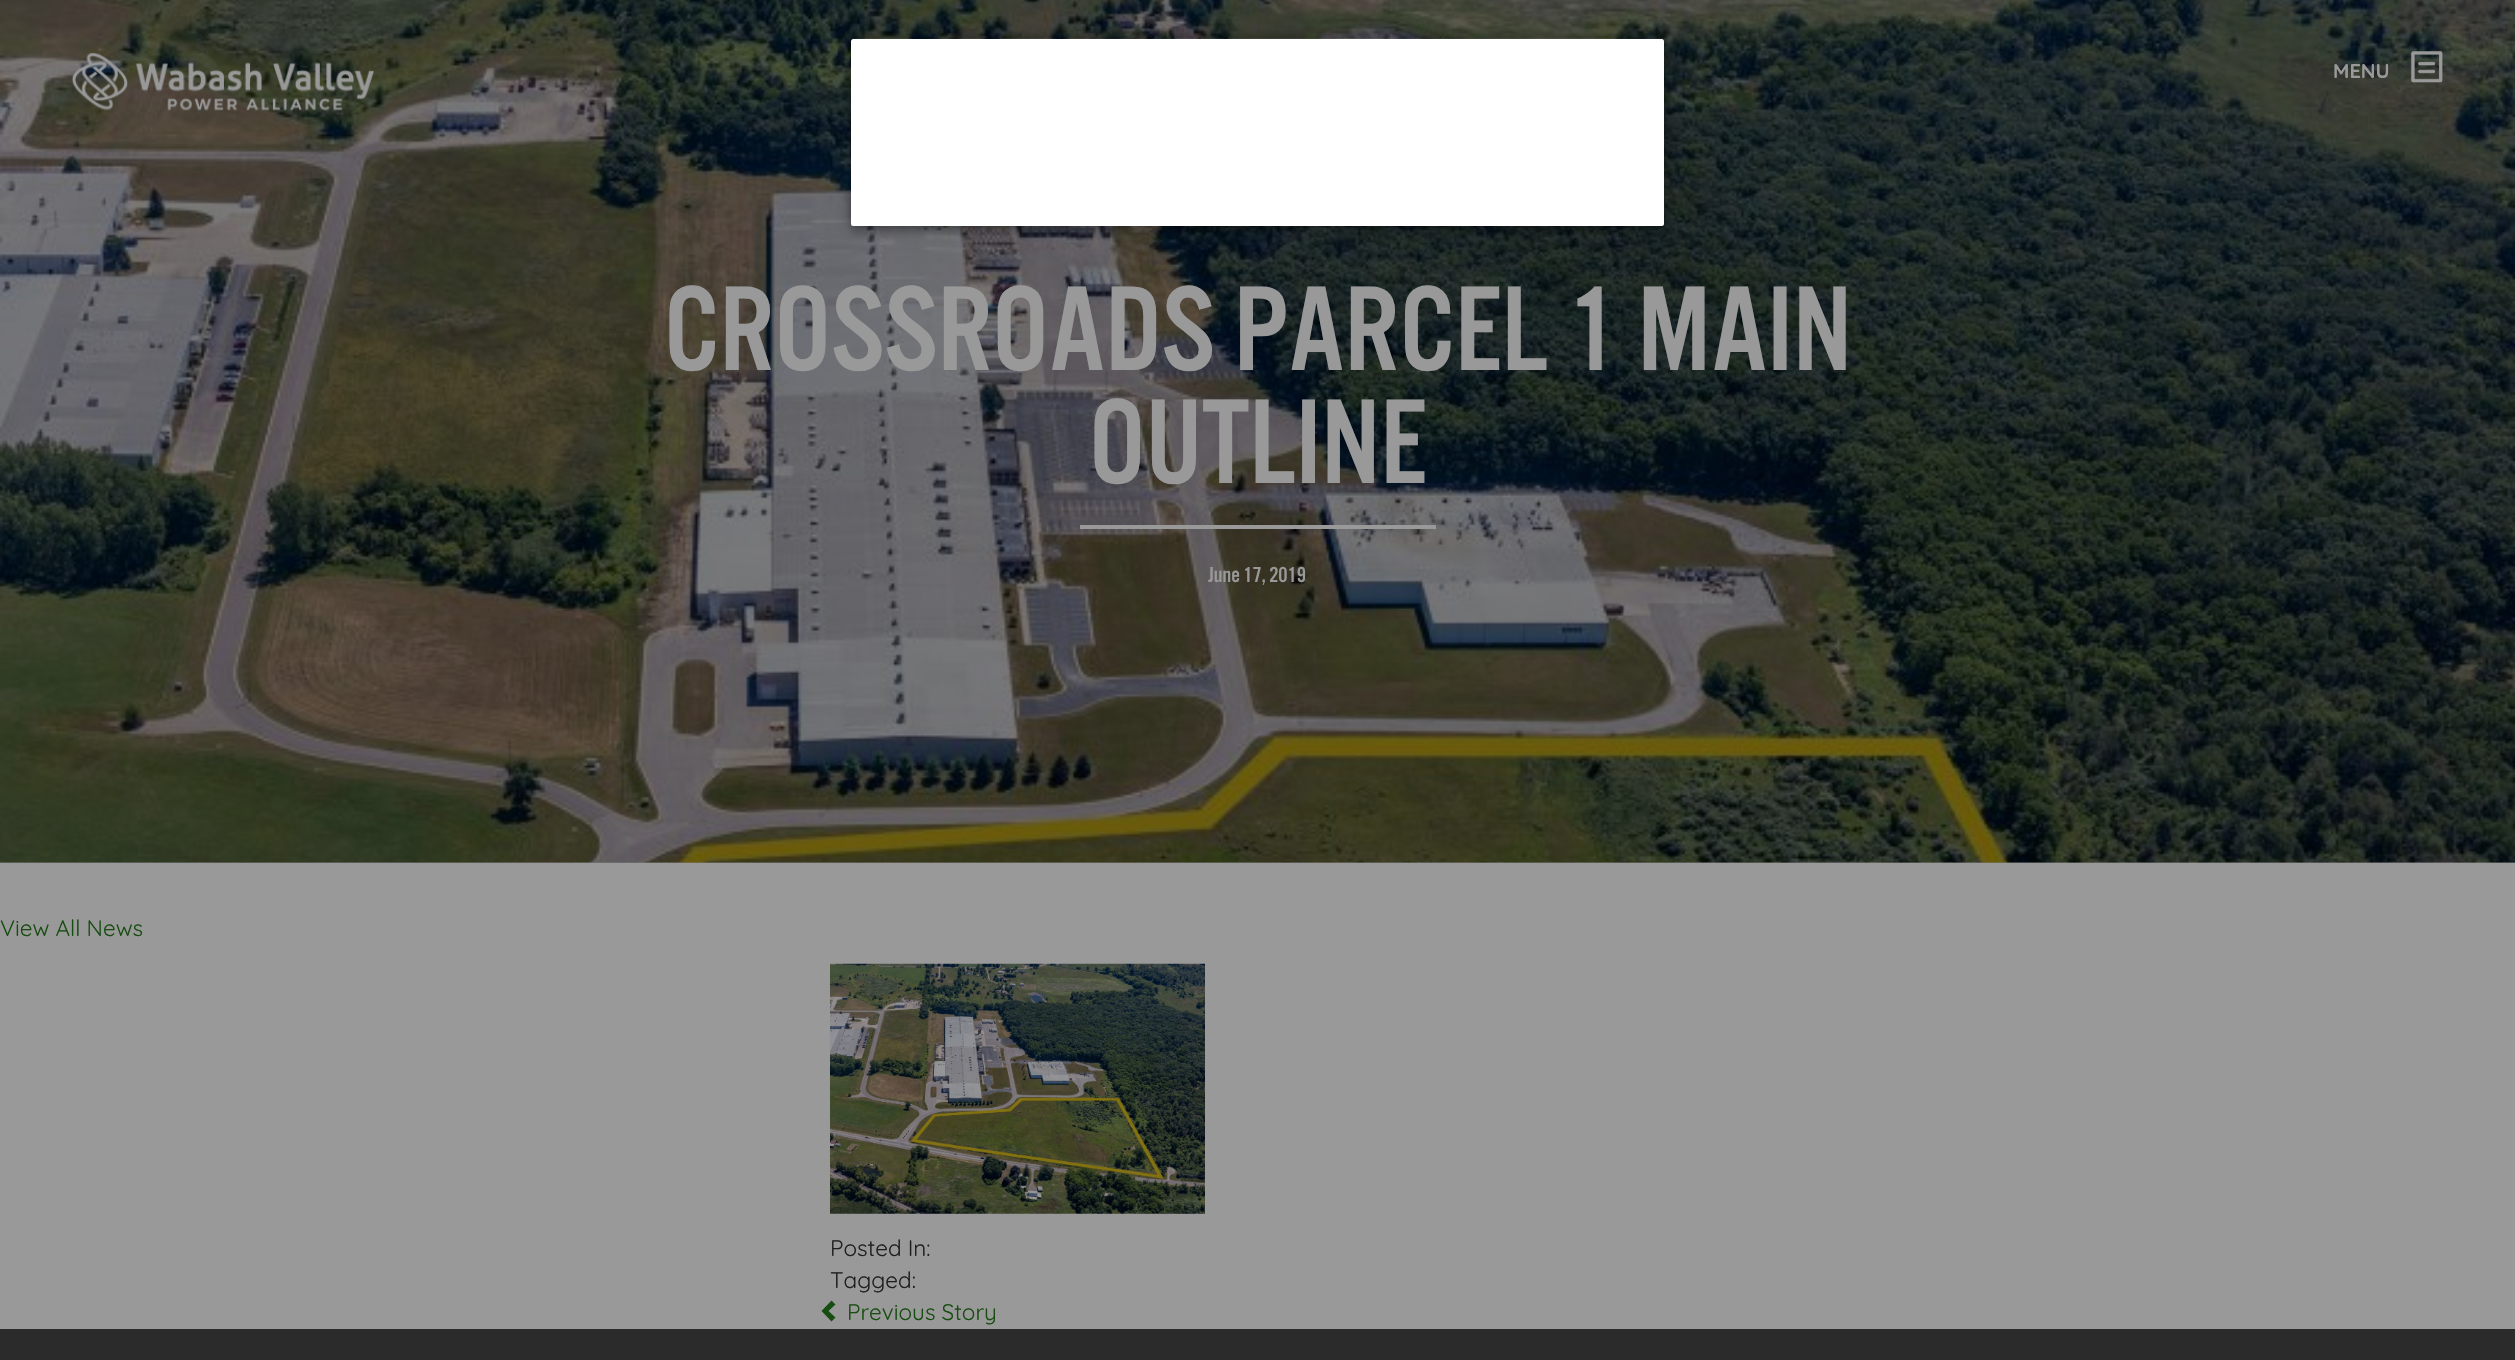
#include "include/core/SkBlurTypes.h"
#include "include/core/SkCanvas.h"
#include "include/core/SkData.h"
#include "include/core/SkFont.h"
#include "include/core/SkFontMgr.h"
#include "include/core/SkImage.h"
#include "include/core/SkMaskFilter.h"
#include "include/core/SkPaint.h"
#include "include/core/SkPathBuilder.h"
#include "include/core/SkTextBlob.h"
#include "include/effects/SkDashPathEffect.h"
#include "include/effects/SkGradientShader.h"
#include "include/utils/SkParsePath.h"

extern sk_sp<SkFontMgr> fontMgr;

void draw(SkCanvas* canvas) {
  SkPaint p;
  p.setAntiAlias(true);
  canvas->clear(SkColorSetRGB(153, 153, 153));
  p.setColor(SkColorSetRGB(122, 122, 122));
  canvas->drawRect(SkRect::MakeLTRB(0, 862, 2515, 863), p);
  canvas->drawImageRect(SkImages::DeferredFromEncodedData(SkData::MakeFromFileName("images/3.png")), SkRect::MakeLTRB(0, 0, 2515, 863), SkSamplingOptions());
  canvas->save();
  canvas->clipPath(SkPathBuilder(SkPathFillType::kEvenOdd).moveTo(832, 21).lineTo(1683, 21).lineTo(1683, 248).lineTo(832, 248).close().moveTo(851, 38).lineTo(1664, 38).lineTo(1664, 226).lineTo(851, 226).close().detach(), true);
  p.setColor(SkColorSetARGB(128, 0, 0, 0));
  p.setMaskFilter(SkMaskFilter::MakeBlur(kNormal_SkBlurStyle, 6));
  canvas->drawRect(SkRect::MakeLTRB(851, 40, 1664, 229), p);
  p.setMaskFilter(nullptr);
  canvas->restore();
  p.setColor(SK_ColorWHITE);
  canvas->drawRoundRect(SkRect::MakeLTRB(851, 39, 1664, 226), 2.5f, 2.5f, p);
  canvas->drawImageRect(SkImages::DeferredFromEncodedData(SkData::MakeFromFileName("images/1.png")), SkRect::MakeLTRB(71, 52, 374, 111), SkSamplingOptions());
  canvas->drawImageRect(SkImages::DeferredFromEncodedData(SkData::MakeFromFileName("images/2.png")), SkRect::MakeLTRB(2411, 51, 2443, 83), SkSamplingOptions());
  p.setColor(SkColorSetRGB(153, 153, 153));
  canvas->drawRect(SkRect::MakeLTRB(1080, 525, 1436, 529), p);
  canvas->drawImageRect(SkImages::DeferredFromEncodedData(SkData::MakeFromFileName("images/4.png")), SkRect::MakeLTRB(830, 963, 1205, 1214), SkSamplingOptions());
  p.setColor(SkColorSetRGB(23, 77, 17));
  canvas->drawPath(SkPathBuilder().moveTo(835.5f, 1304.5f).lineTo(828.5f, 1311).lineTo(835.5f, 1317.5f).lineTo(831.5f, 1321.5f).lineTo(821.5f, 1311).lineTo(831.5f, 1300.5f).close().detach(), p);
  p.setColor(SkColorSetRGB(43, 43, 43));
  canvas->drawRect(SkRect::MakeLTRB(0, 1329, 2515, 1360), p);
  SkFont font1(fontMgr->matchFamilyStyle("Quicksand", SkFontStyle::Bold()), 20);
  font1.setSubpixel(true);
  p.setColor(SkColorSetRGB(153, 153, 153));
  canvas->drawString("MENU", 2333, 78, font1, p);
  SkFont font2(fontMgr->matchFamilyStyle("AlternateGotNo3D", SkFontStyle::Normal()), 125);
  font2.setSubpixel(true);
  canvas->drawString("CROSSROADS PARCEL 1 MAIN", 664, 370, font2, p);
  canvas->drawString("OUTLINE", 1089, 483, font2, p);
  SkFont font3(fontMgr->matchFamilyStyle("AlternateGotNo3D", SkFontStyle::Normal()), 22.5f);
  font3.setSubpixel(true);
  canvas->drawString("June 17, 2019", 1208, 582, font3, p);
  SkFont font4(fontMgr->matchFamilyStyle("Quicksand", SkFontStyle::Normal()), 22.5f);
  font4.setSubpixel(true);
  p.setColor(SkColorSetRGB(23, 77, 17));
  canvas->drawString("View All News", 0, 936, font4, p);
  p.setColor(SkColorSetRGB(31, 31, 31));
  canvas->drawString("Posted In:", 830, 1256, font4, p);
  canvas->drawString("Tagged:", 830, 1288, font4, p);
  p.setColor(SkColorSetRGB(23, 77, 17));
  canvas->drawString("Previous Story", 847, 1320, font4, p);
}
